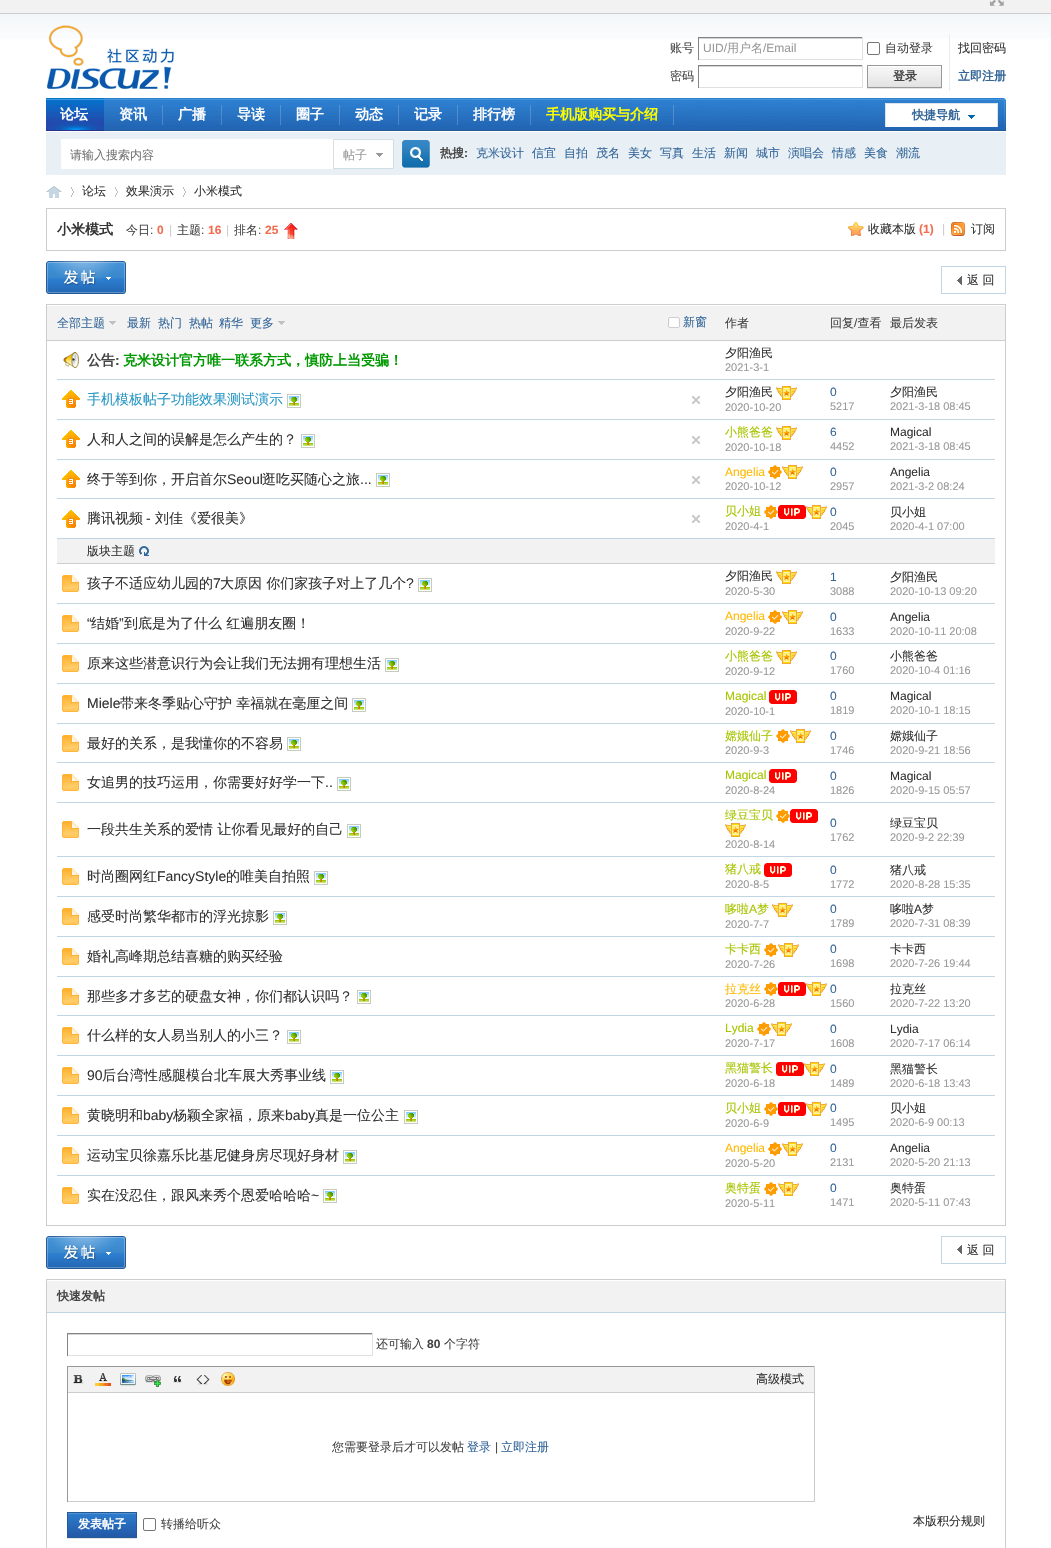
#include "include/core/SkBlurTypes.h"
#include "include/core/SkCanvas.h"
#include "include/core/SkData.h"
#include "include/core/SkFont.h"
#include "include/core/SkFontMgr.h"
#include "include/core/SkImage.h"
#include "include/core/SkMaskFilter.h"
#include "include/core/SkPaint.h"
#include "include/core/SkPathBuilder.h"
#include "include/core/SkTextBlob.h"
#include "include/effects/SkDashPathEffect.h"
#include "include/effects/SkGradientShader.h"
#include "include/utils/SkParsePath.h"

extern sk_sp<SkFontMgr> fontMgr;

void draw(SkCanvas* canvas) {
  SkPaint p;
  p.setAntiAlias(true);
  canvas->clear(SK_ColorWHITE);
  canvas->drawImageRect(SkImages::DeferredFromEncodedData(SkData::MakeFromFileName("images/1.png")), SkRect::MakeLTRB(0, 14, 1051, 39), SkSamplingOptions());
  p.setColor(SkColorSetRGB(242, 242, 242));
  canvas->drawRect(SkRect::MakeLTRB(0, 0, 1051, 13), p);
  p.setColor(SkColorSetRGB(205, 205, 205));
  canvas->drawRect(SkRect::MakeLTRB(0, 13, 1051, 14), p);
  canvas->drawImageRect(SkImages::DeferredFromEncodedData(SkData::MakeFromFileName("images/2.png")), SkRect::MakeLTRB(989, 0, 1004, 6), SkSamplingOptions());
  canvas->drawImageRect(SkImages::DeferredFromEncodedData(SkData::MakeFromFileName("images/3.png")), SkRect::MakeLTRB(47, 25, 174, 89), SkSamplingOptions());
  p.setColor(SkColorSetRGB(212, 212, 212));
  canvas->drawRect(SkRect::MakeLTRB(698, 38, 863, 39), p);
  p.setColor(SkColorSetRGB(132, 132, 132));
  canvas->drawRect(SkRect::MakeLTRB(698, 37, 863, 38), p);
  p.setColor(SkColorSetRGB(224, 224, 224));
  canvas->drawRect(SkRect::MakeLTRB(862, 37, 863, 60), p);
  canvas->drawRect(SkRect::MakeLTRB(698, 59, 863, 60), p);
  p.setColor(SkColorSetRGB(132, 132, 132));
  canvas->drawRect(SkRect::MakeLTRB(698, 37, 699, 60), p);
  p.setStyle(SkPaint::kStroke_Style);
  p.setStrokeWidth(1);
  p.setColor(SkColorSetRGB(118, 118, 118));
  canvas->drawRoundRect(SkRect::MakeLTRB(867.5f, 42.5f, 879.5f, 54.5f), 1.5f, 1.5f, p);
  p.setStyle(SkPaint::kFill_Style);
  p.setColor(SkColorSetRGB(212, 212, 212));
  canvas->drawRect(SkRect::MakeLTRB(698, 66, 863, 67), p);
  p.setColor(SkColorSetRGB(132, 132, 132));
  canvas->drawRect(SkRect::MakeLTRB(698, 65, 863, 66), p);
  p.setColor(SkColorSetRGB(224, 224, 224));
  canvas->drawRect(SkRect::MakeLTRB(862, 65, 863, 88), p);
  canvas->drawRect(SkRect::MakeLTRB(698, 87, 863, 88), p);
  p.setColor(SkColorSetRGB(132, 132, 132));
  canvas->drawRect(SkRect::MakeLTRB(698, 65, 699, 88), p);
  p.setColor(SkColorSetRGB(229, 237, 242));
  canvas->drawRect(SkRect::MakeLTRB(949, 34, 950, 91), p);
  p.setColor(SkColorSetRGB(229, 229, 229));
  canvas->drawRect(SkRect::MakeLTRB(867, 88, 942, 89), p);
  canvas->drawImageRect(SkImages::DeferredFromEncodedData(SkData::MakeFromFileName("images/4.png")), SkRect::MakeLTRB(868, 66, 941, 87), SkSamplingOptions());
  p.setStyle(SkPaint::kStroke_Style);
  p.setColor(SkColorSetRGB(153, 153, 153));
  canvas->drawRect(SkRect::MakeLTRB(867.5f, 65.5f, 941.5f, 87.5f), p);
  canvas->drawImageRect(SkImages::DeferredFromEncodedData(SkData::MakeFromFileName("images/5.png")), SkRect::MakeLTRB(104, 98, 1006, 131), SkSamplingOptions());
  canvas->drawImageRect(SkImages::DeferredFromEncodedData(SkData::MakeFromFileName("images/6.png")), SkRect::MakeLTRB(46, 98, 104, 131), SkSamplingOptions());
  canvas->drawImageRect(SkImages::DeferredFromEncodedData(SkData::MakeFromFileName("images/7.png")), SkRect::MakeLTRB(162, 105, 163, 125), SkSamplingOptions());
  canvas->drawImageRect(SkImages::DeferredFromEncodedData(SkData::MakeFromFileName("images/7.png")), SkRect::MakeLTRB(221, 105, 222, 125), SkSamplingOptions());
  canvas->drawImageRect(SkImages::DeferredFromEncodedData(SkData::MakeFromFileName("images/7.png")), SkRect::MakeLTRB(280, 105, 281, 125), SkSamplingOptions());
  canvas->drawImageRect(SkImages::DeferredFromEncodedData(SkData::MakeFromFileName("images/7.png")), SkRect::MakeLTRB(339, 105, 340, 125), SkSamplingOptions());
  canvas->drawImageRect(SkImages::DeferredFromEncodedData(SkData::MakeFromFileName("images/7.png")), SkRect::MakeLTRB(398, 105, 399, 125), SkSamplingOptions());
  canvas->drawImageRect(SkImages::DeferredFromEncodedData(SkData::MakeFromFileName("images/7.png")), SkRect::MakeLTRB(457, 105, 458, 125), SkSamplingOptions());
  canvas->drawImageRect(SkImages::DeferredFromEncodedData(SkData::MakeFromFileName("images/7.png")), SkRect::MakeLTRB(530, 105, 531, 125), SkSamplingOptions());
  canvas->drawImageRect(SkImages::DeferredFromEncodedData(SkData::MakeFromFileName("images/7.png")), SkRect::MakeLTRB(673, 105, 674, 125), SkSamplingOptions());
  canvas->drawImageRect(SkImages::DeferredFromEncodedData(SkData::MakeFromFileName("images/8.png")), SkRect::MakeLTRB(885, 103, 998, 127), SkSamplingOptions());
  p.setStyle(SkPaint::kFill_Style);
  p.setColor(SkColorSetRGB(232, 239, 245));
  canvas->drawRect(SkRect::MakeLTRB(46, 132, 1006, 175), p);
  p.setColor(SK_ColorWHITE);
  canvas->drawRect(SkRect::MakeLTRB(61, 139, 333, 169), p);
  canvas->drawImageRect(SkImages::DeferredFromEncodedData(SkData::MakeFromFileName("images/9.png")), SkRect::MakeLTRB(402, 140, 430, 168), SkSamplingOptions());
  canvas->drawImageRect(SkImages::DeferredFromEncodedData(SkData::MakeFromFileName("images/10.png")), SkRect::MakeLTRB(333, 139, 394, 169), SkSamplingOptions());
  canvas->drawImageRect(SkImages::DeferredFromEncodedData(SkData::MakeFromFileName("images/11.png")), SkRect::MakeLTRB(46, 186, 62, 198), SkSamplingOptions());
  canvas->drawImageRect(SkImages::DeferredFromEncodedData(SkData::MakeFromFileName("images/12.png")), SkRect::MakeLTRB(71, 187, 74, 197), SkSamplingOptions());
  canvas->drawImageRect(SkImages::DeferredFromEncodedData(SkData::MakeFromFileName("images/12.png")), SkRect::MakeLTRB(115, 187, 118, 197), SkSamplingOptions());
  canvas->drawImageRect(SkImages::DeferredFromEncodedData(SkData::MakeFromFileName("images/12.png")), SkRect::MakeLTRB(183, 187, 186, 197), SkSamplingOptions());
  p.setStyle(SkPaint::kStroke_Style);
  p.setColor(SkColorSetRGB(205, 205, 205));
  canvas->drawRect(SkRect::MakeLTRB(46.5f, 208.5f, 1005.5f, 250.5f), p);
  canvas->drawImageRect(SkImages::DeferredFromEncodedData(SkData::MakeFromFileName("images/13.png")), SkRect::MakeLTRB(284, 223, 298, 239), SkSamplingOptions());
  canvas->drawImageRect(SkImages::DeferredFromEncodedData(SkData::MakeFromFileName("images/14.png")), SkRect::MakeLTRB(848, 222, 864, 236), SkSamplingOptions());
  canvas->drawImageRect(SkImages::DeferredFromEncodedData(SkData::MakeFromFileName("images/15.png")), SkRect::MakeLTRB(951, 222, 965, 236), SkSamplingOptions());
  canvas->drawImageRect(SkImages::DeferredFromEncodedData(SkData::MakeFromFileName("images/16.png")), SkRect::MakeLTRB(46, 261, 126, 294), SkSamplingOptions());
  canvas->drawImageRect(SkImages::DeferredFromEncodedData(SkData::MakeFromFileName("images/17.png")), SkRect::MakeLTRB(957, 276, 962, 285), SkSamplingOptions());
  p.setColor(SkColorSetRGB(194, 213, 227));
  canvas->drawRect(SkRect::MakeLTRB(941.5f, 266.5f, 1005.5f, 293.5f), p);
  p.setColor(SkColorSetRGB(205, 205, 205));
  canvas->drawRect(SkRect::MakeLTRB(46.5f, 304.5f, 1005.5f, 1225.5f), p);
  p.setStyle(SkPaint::kFill_Style);
  p.setColor(SkColorSetRGB(242, 242, 242));
  canvas->drawRect(SkRect::MakeLTRB(47, 306, 1005, 340), p);
  p.setColor(SkColorSetRGB(205, 205, 205));
  canvas->drawRect(SkRect::MakeLTRB(47, 340, 1005, 341), p);
  canvas->drawImageRect(SkImages::DeferredFromEncodedData(SkData::MakeFromFileName("images/18.png")), SkRect::MakeLTRB(109, 321, 116, 325), SkSamplingOptions());
  canvas->drawImageRect(SkImages::DeferredFromEncodedData(SkData::MakeFromFileName("images/18.png")), SkRect::MakeLTRB(278, 321, 285, 325), SkSamplingOptions());
  canvas->drawImageRect(SkImages::DeferredFromEncodedData(SkData::MakeFromFileName("images/19.png")), SkRect::MakeLTRB(668, 317, 680, 328), SkSamplingOptions());
  p.setColor(SkColorSetRGB(194, 213, 227));
  canvas->drawRect(SkRect::MakeLTRB(57, 379, 995, 380), p);
  canvas->drawImageRect(SkImages::DeferredFromEncodedData(SkData::MakeFromFileName("images/20.png")), SkRect::MakeLTRB(63, 352, 79, 368), SkSamplingOptions());
  canvas->drawImageRect(SkImages::DeferredFromEncodedData(SkData::MakeFromFileName("images/21.png")), SkRect::MakeLTRB(776, 386, 797, 400), SkSamplingOptions());
  canvas->drawRect(SkRect::MakeLTRB(57, 419, 995, 420), p);
  canvas->drawImageRect(SkImages::DeferredFromEncodedData(SkData::MakeFromFileName("images/22.png")), SkRect::MakeLTRB(62, 390, 80, 408), SkSamplingOptions());
  canvas->drawImageRect(SkImages::DeferredFromEncodedData(SkData::MakeFromFileName("images/23.png")), SkRect::MakeLTRB(287, 394, 301, 408), SkSamplingOptions());
  canvas->drawImageRect(SkImages::DeferredFromEncodedData(SkData::MakeFromFileName("images/24.png")), SkRect::MakeLTRB(692, 396, 700, 404), SkSamplingOptions());
  canvas->drawImageRect(SkImages::DeferredFromEncodedData(SkData::MakeFromFileName("images/21.png")), SkRect::MakeLTRB(776, 426, 797, 440), SkSamplingOptions());
  canvas->drawRect(SkRect::MakeLTRB(57, 459, 995, 460), p);
  canvas->drawImageRect(SkImages::DeferredFromEncodedData(SkData::MakeFromFileName("images/22.png")), SkRect::MakeLTRB(62, 430, 80, 448), SkSamplingOptions());
  canvas->drawImageRect(SkImages::DeferredFromEncodedData(SkData::MakeFromFileName("images/23.png")), SkRect::MakeLTRB(301, 434, 315, 448), SkSamplingOptions());
  canvas->drawImageRect(SkImages::DeferredFromEncodedData(SkData::MakeFromFileName("images/24.png")), SkRect::MakeLTRB(692, 436, 700, 444), SkSamplingOptions());
  canvas->drawImageRect(SkImages::DeferredFromEncodedData(SkData::MakeFromFileName("images/25.png")), SkRect::MakeLTRB(768, 465, 782, 479), SkSamplingOptions());
  canvas->drawImageRect(SkImages::DeferredFromEncodedData(SkData::MakeFromFileName("images/21.png")), SkRect::MakeLTRB(782, 465, 803, 479), SkSamplingOptions());
  canvas->drawRect(SkRect::MakeLTRB(57, 498, 995, 499), p);
  canvas->drawImageRect(SkImages::DeferredFromEncodedData(SkData::MakeFromFileName("images/22.png")), SkRect::MakeLTRB(62, 470, 80, 488), SkSamplingOptions());
  canvas->drawImageRect(SkImages::DeferredFromEncodedData(SkData::MakeFromFileName("images/23.png")), SkRect::MakeLTRB(376, 473, 390, 487), SkSamplingOptions());
  canvas->drawImageRect(SkImages::DeferredFromEncodedData(SkData::MakeFromFileName("images/24.png")), SkRect::MakeLTRB(692, 476, 700, 484), SkSamplingOptions());
  canvas->drawImageRect(SkImages::DeferredFromEncodedData(SkData::MakeFromFileName("images/26.png")), SkRect::MakeLTRB(764, 505, 778, 519), SkSamplingOptions());
  canvas->drawImageRect(SkImages::DeferredFromEncodedData(SkData::MakeFromFileName("images/27.png")), SkRect::MakeLTRB(778, 505, 806, 519), SkSamplingOptions());
  canvas->drawImageRect(SkImages::DeferredFromEncodedData(SkData::MakeFromFileName("images/21.png")), SkRect::MakeLTRB(806, 505, 827, 519), SkSamplingOptions());
  canvas->drawRect(SkRect::MakeLTRB(57, 538, 995, 539), p);
  canvas->drawImageRect(SkImages::DeferredFromEncodedData(SkData::MakeFromFileName("images/22.png")), SkRect::MakeLTRB(62, 510, 80, 528), SkSamplingOptions());
  canvas->drawImageRect(SkImages::DeferredFromEncodedData(SkData::MakeFromFileName("images/24.png")), SkRect::MakeLTRB(692, 515, 700, 523), SkSamplingOptions());
  p.setColor(SkColorSetRGB(242, 242, 242));
  canvas->drawRect(SkRect::MakeLTRB(57, 539, 995, 563), p);
  p.setColor(SkColorSetRGB(205, 205, 205));
  canvas->drawRect(SkRect::MakeLTRB(57, 563, 995, 564), p);
  canvas->drawImageRect(SkImages::DeferredFromEncodedData(SkData::MakeFromFileName("images/28.png")), SkRect::MakeLTRB(139, 546, 149, 556), SkSamplingOptions());
  canvas->drawImageRect(SkImages::DeferredFromEncodedData(SkData::MakeFromFileName("images/21.png")), SkRect::MakeLTRB(776, 570, 797, 584), SkSamplingOptions());
  p.setColor(SkColorSetRGB(194, 213, 227));
  canvas->drawRect(SkRect::MakeLTRB(57, 603, 995, 604), p);
  canvas->drawImageRect(SkImages::DeferredFromEncodedData(SkData::MakeFromFileName("images/29.png")), SkRect::MakeLTRB(62, 575, 79, 592), SkSamplingOptions());
  canvas->drawImageRect(SkImages::DeferredFromEncodedData(SkData::MakeFromFileName("images/23.png")), SkRect::MakeLTRB(418, 578, 432, 592), SkSamplingOptions());
  canvas->drawImageRect(SkImages::DeferredFromEncodedData(SkData::MakeFromFileName("images/25.png")), SkRect::MakeLTRB(768, 610, 782, 624), SkSamplingOptions());
  canvas->drawImageRect(SkImages::DeferredFromEncodedData(SkData::MakeFromFileName("images/21.png")), SkRect::MakeLTRB(782, 610, 803, 624), SkSamplingOptions());
  canvas->drawRect(SkRect::MakeLTRB(57, 643, 995, 644), p);
  canvas->drawImageRect(SkImages::DeferredFromEncodedData(SkData::MakeFromFileName("images/29.png")), SkRect::MakeLTRB(62, 615, 79, 632), SkSamplingOptions());
  canvas->drawImageRect(SkImages::DeferredFromEncodedData(SkData::MakeFromFileName("images/21.png")), SkRect::MakeLTRB(776, 650, 797, 664), SkSamplingOptions());
  canvas->drawRect(SkRect::MakeLTRB(57, 683, 995, 684), p);
  canvas->drawImageRect(SkImages::DeferredFromEncodedData(SkData::MakeFromFileName("images/29.png")), SkRect::MakeLTRB(62, 655, 79, 672), SkSamplingOptions());
  canvas->drawImageRect(SkImages::DeferredFromEncodedData(SkData::MakeFromFileName("images/23.png")), SkRect::MakeLTRB(385, 658, 399, 672), SkSamplingOptions());
  canvas->drawImageRect(SkImages::DeferredFromEncodedData(SkData::MakeFromFileName("images/30.png")), SkRect::MakeLTRB(769, 690, 797, 704), SkSamplingOptions());
  canvas->drawRect(SkRect::MakeLTRB(57, 723, 995, 724), p);
  canvas->drawImageRect(SkImages::DeferredFromEncodedData(SkData::MakeFromFileName("images/29.png")), SkRect::MakeLTRB(62, 695, 79, 712), SkSamplingOptions());
  canvas->drawImageRect(SkImages::DeferredFromEncodedData(SkData::MakeFromFileName("images/23.png")), SkRect::MakeLTRB(352, 698, 366, 712), SkSamplingOptions());
  canvas->drawImageRect(SkImages::DeferredFromEncodedData(SkData::MakeFromFileName("images/26.png")), SkRect::MakeLTRB(776, 729, 790, 743), SkSamplingOptions());
  canvas->drawImageRect(SkImages::DeferredFromEncodedData(SkData::MakeFromFileName("images/21.png")), SkRect::MakeLTRB(790, 729, 811, 743), SkSamplingOptions());
  canvas->drawRect(SkRect::MakeLTRB(57, 762, 995, 763), p);
  canvas->drawImageRect(SkImages::DeferredFromEncodedData(SkData::MakeFromFileName("images/29.png")), SkRect::MakeLTRB(62, 735, 79, 752), SkSamplingOptions());
  canvas->drawImageRect(SkImages::DeferredFromEncodedData(SkData::MakeFromFileName("images/23.png")), SkRect::MakeLTRB(287, 737, 301, 751), SkSamplingOptions());
  canvas->drawImageRect(SkImages::DeferredFromEncodedData(SkData::MakeFromFileName("images/31.png")), SkRect::MakeLTRB(769, 769, 797, 783), SkSamplingOptions());
  canvas->drawRect(SkRect::MakeLTRB(57, 802, 995, 803), p);
  canvas->drawImageRect(SkImages::DeferredFromEncodedData(SkData::MakeFromFileName("images/29.png")), SkRect::MakeLTRB(62, 774, 79, 791), SkSamplingOptions());
  canvas->drawImageRect(SkImages::DeferredFromEncodedData(SkData::MakeFromFileName("images/23.png")), SkRect::MakeLTRB(337, 777, 351, 791), SkSamplingOptions());
  canvas->drawImageRect(SkImages::DeferredFromEncodedData(SkData::MakeFromFileName("images/26.png")), SkRect::MakeLTRB(776, 809, 790, 823), SkSamplingOptions());
  canvas->drawImageRect(SkImages::DeferredFromEncodedData(SkData::MakeFromFileName("images/30.png")), SkRect::MakeLTRB(790, 809, 818, 823), SkSamplingOptions());
  canvas->drawImageRect(SkImages::DeferredFromEncodedData(SkData::MakeFromFileName("images/21.png")), SkRect::MakeLTRB(725, 823, 746, 837), SkSamplingOptions());
  canvas->drawRect(SkRect::MakeLTRB(57, 856, 995, 857), p);
  canvas->drawImageRect(SkImages::DeferredFromEncodedData(SkData::MakeFromFileName("images/29.png")), SkRect::MakeLTRB(62, 821, 79, 838), SkSamplingOptions());
  canvas->drawImageRect(SkImages::DeferredFromEncodedData(SkData::MakeFromFileName("images/23.png")), SkRect::MakeLTRB(347, 824, 361, 838), SkSamplingOptions());
  canvas->drawImageRect(SkImages::DeferredFromEncodedData(SkData::MakeFromFileName("images/30.png")), SkRect::MakeLTRB(764, 863, 792, 877), SkSamplingOptions());
  canvas->drawRect(SkRect::MakeLTRB(57, 896, 995, 897), p);
  canvas->drawImageRect(SkImages::DeferredFromEncodedData(SkData::MakeFromFileName("images/29.png")), SkRect::MakeLTRB(62, 868, 79, 885), SkSamplingOptions());
  canvas->drawImageRect(SkImages::DeferredFromEncodedData(SkData::MakeFromFileName("images/23.png")), SkRect::MakeLTRB(314, 871, 328, 885), SkSamplingOptions());
  canvas->drawImageRect(SkImages::DeferredFromEncodedData(SkData::MakeFromFileName("images/21.png")), SkRect::MakeLTRB(772, 903, 793, 917), SkSamplingOptions());
  canvas->drawRect(SkRect::MakeLTRB(57, 936, 995, 937), p);
  canvas->drawImageRect(SkImages::DeferredFromEncodedData(SkData::MakeFromFileName("images/29.png")), SkRect::MakeLTRB(62, 908, 79, 925), SkSamplingOptions());
  canvas->drawImageRect(SkImages::DeferredFromEncodedData(SkData::MakeFromFileName("images/23.png")), SkRect::MakeLTRB(273, 911, 287, 925), SkSamplingOptions());
  canvas->drawImageRect(SkImages::DeferredFromEncodedData(SkData::MakeFromFileName("images/26.png")), SkRect::MakeLTRB(764, 943, 778, 957), SkSamplingOptions());
  canvas->drawImageRect(SkImages::DeferredFromEncodedData(SkData::MakeFromFileName("images/21.png")), SkRect::MakeLTRB(778, 943, 799, 957), SkSamplingOptions());
  canvas->drawRect(SkRect::MakeLTRB(57, 976, 995, 977), p);
  canvas->drawImageRect(SkImages::DeferredFromEncodedData(SkData::MakeFromFileName("images/29.png")), SkRect::MakeLTRB(62, 948, 79, 965), SkSamplingOptions());
  canvas->drawImageRect(SkImages::DeferredFromEncodedData(SkData::MakeFromFileName("images/26.png")), SkRect::MakeLTRB(764, 982, 778, 996), SkSamplingOptions());
  canvas->drawImageRect(SkImages::DeferredFromEncodedData(SkData::MakeFromFileName("images/27.png")), SkRect::MakeLTRB(778, 982, 806, 996), SkSamplingOptions());
  canvas->drawImageRect(SkImages::DeferredFromEncodedData(SkData::MakeFromFileName("images/21.png")), SkRect::MakeLTRB(806, 982, 827, 996), SkSamplingOptions());
  canvas->drawRect(SkRect::MakeLTRB(57, 1015, 995, 1016), p);
  canvas->drawImageRect(SkImages::DeferredFromEncodedData(SkData::MakeFromFileName("images/29.png")), SkRect::MakeLTRB(62, 988, 79, 1005), SkSamplingOptions());
  canvas->drawImageRect(SkImages::DeferredFromEncodedData(SkData::MakeFromFileName("images/23.png")), SkRect::MakeLTRB(357, 990, 371, 1004), SkSamplingOptions());
  canvas->drawImageRect(SkImages::DeferredFromEncodedData(SkData::MakeFromFileName("images/26.png")), SkRect::MakeLTRB(757, 1022, 771, 1036), SkSamplingOptions());
  canvas->drawImageRect(SkImages::DeferredFromEncodedData(SkData::MakeFromFileName("images/21.png")), SkRect::MakeLTRB(771, 1022, 792, 1036), SkSamplingOptions());
  canvas->drawRect(SkRect::MakeLTRB(57, 1055, 995, 1056), p);
  canvas->drawImageRect(SkImages::DeferredFromEncodedData(SkData::MakeFromFileName("images/29.png")), SkRect::MakeLTRB(62, 1027, 79, 1044), SkSamplingOptions());
  canvas->drawImageRect(SkImages::DeferredFromEncodedData(SkData::MakeFromFileName("images/23.png")), SkRect::MakeLTRB(287, 1030, 301, 1044), SkSamplingOptions());
  canvas->drawImageRect(SkImages::DeferredFromEncodedData(SkData::MakeFromFileName("images/31.png")), SkRect::MakeLTRB(776, 1062, 804, 1076), SkSamplingOptions());
  canvas->drawImageRect(SkImages::DeferredFromEncodedData(SkData::MakeFromFileName("images/21.png")), SkRect::MakeLTRB(804, 1062, 825, 1076), SkSamplingOptions());
  canvas->drawRect(SkRect::MakeLTRB(57, 1095, 995, 1096), p);
  canvas->drawImageRect(SkImages::DeferredFromEncodedData(SkData::MakeFromFileName("images/29.png")), SkRect::MakeLTRB(62, 1067, 79, 1084), SkSamplingOptions());
  canvas->drawImageRect(SkImages::DeferredFromEncodedData(SkData::MakeFromFileName("images/23.png")), SkRect::MakeLTRB(330, 1070, 344, 1084), SkSamplingOptions());
  canvas->drawImageRect(SkImages::DeferredFromEncodedData(SkData::MakeFromFileName("images/26.png")), SkRect::MakeLTRB(764, 1102, 778, 1116), SkSamplingOptions());
  canvas->drawImageRect(SkImages::DeferredFromEncodedData(SkData::MakeFromFileName("images/27.png")), SkRect::MakeLTRB(778, 1102, 806, 1116), SkSamplingOptions());
  canvas->drawImageRect(SkImages::DeferredFromEncodedData(SkData::MakeFromFileName("images/21.png")), SkRect::MakeLTRB(806, 1102, 827, 1116), SkSamplingOptions());
  canvas->drawRect(SkRect::MakeLTRB(57, 1135, 995, 1136), p);
  canvas->drawImageRect(SkImages::DeferredFromEncodedData(SkData::MakeFromFileName("images/29.png")), SkRect::MakeLTRB(62, 1107, 79, 1124), SkSamplingOptions());
  canvas->drawImageRect(SkImages::DeferredFromEncodedData(SkData::MakeFromFileName("images/23.png")), SkRect::MakeLTRB(404, 1110, 418, 1124), SkSamplingOptions());
  canvas->drawImageRect(SkImages::DeferredFromEncodedData(SkData::MakeFromFileName("images/25.png")), SkRect::MakeLTRB(768, 1142, 782, 1156), SkSamplingOptions());
  canvas->drawImageRect(SkImages::DeferredFromEncodedData(SkData::MakeFromFileName("images/21.png")), SkRect::MakeLTRB(782, 1142, 803, 1156), SkSamplingOptions());
  canvas->drawRect(SkRect::MakeLTRB(57, 1175, 995, 1176), p);
  canvas->drawImageRect(SkImages::DeferredFromEncodedData(SkData::MakeFromFileName("images/29.png")), SkRect::MakeLTRB(62, 1147, 79, 1164), SkSamplingOptions());
  canvas->drawImageRect(SkImages::DeferredFromEncodedData(SkData::MakeFromFileName("images/23.png")), SkRect::MakeLTRB(343, 1150, 357, 1164), SkSamplingOptions());
  canvas->drawImageRect(SkImages::DeferredFromEncodedData(SkData::MakeFromFileName("images/29.png")), SkRect::MakeLTRB(62, 1187, 79, 1204), SkSamplingOptions());
  canvas->drawImageRect(SkImages::DeferredFromEncodedData(SkData::MakeFromFileName("images/23.png")), SkRect::MakeLTRB(323, 1189, 337, 1203), SkSamplingOptions());
  canvas->drawImageRect(SkImages::DeferredFromEncodedData(SkData::MakeFromFileName("images/26.png")), SkRect::MakeLTRB(764, 1182, 778, 1196), SkSamplingOptions());
  canvas->drawImageRect(SkImages::DeferredFromEncodedData(SkData::MakeFromFileName("images/21.png")), SkRect::MakeLTRB(778, 1182, 799, 1196), SkSamplingOptions());
  canvas->drawImageRect(SkImages::DeferredFromEncodedData(SkData::MakeFromFileName("images/16.png")), SkRect::MakeLTRB(46, 1236, 126, 1269), SkSamplingOptions());
  canvas->drawImageRect(SkImages::DeferredFromEncodedData(SkData::MakeFromFileName("images/17.png")), SkRect::MakeLTRB(957, 1245, 962, 1254), SkSamplingOptions());
  p.setStyle(SkPaint::kStroke_Style);
  canvas->drawRect(SkRect::MakeLTRB(941.5f, 1236.5f, 1005.5f, 1263.5f), p);
  p.setColor(SkColorSetRGB(205, 205, 205));
  canvas->drawRect(SkRect::MakeLTRB(46.5f, 1279.5f, 1005.5f, 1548.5f), p);
  p.setStyle(SkPaint::kFill_Style);
  p.setColor(SkColorSetRGB(242, 242, 242));
  canvas->drawRect(SkRect::MakeLTRB(47, 1281, 1005, 1312), p);
  p.setColor(SkColorSetRGB(194, 213, 227));
  canvas->drawRect(SkRect::MakeLTRB(47, 1312, 1005, 1313), p);
  p.setColor(SkColorSetRGB(212, 212, 212));
  canvas->drawRect(SkRect::MakeLTRB(67, 1334, 373, 1335), p);
  p.setColor(SkColorSetRGB(132, 132, 132));
  canvas->drawRect(SkRect::MakeLTRB(67, 1333, 373, 1334), p);
  p.setColor(SkColorSetRGB(224, 224, 224));
  canvas->drawRect(SkRect::MakeLTRB(372, 1333, 373, 1356), p);
  canvas->drawRect(SkRect::MakeLTRB(67, 1355, 373, 1356), p);
  p.setColor(SkColorSetRGB(132, 132, 132));
  canvas->drawRect(SkRect::MakeLTRB(67, 1333, 68, 1356), p);
  p.setColor(SkColorSetRGB(153, 153, 153));
  canvas->drawRect(SkRect::MakeLTRB(67, 1366, 815, 1367), p);
  p.setColor(SkColorSetRGB(204, 204, 204));
  canvas->drawRect(SkRect::MakeLTRB(814, 1366, 815, 1502), p);
  canvas->drawRect(SkRect::MakeLTRB(67, 1501, 815, 1502), p);
  p.setColor(SkColorSetRGB(153, 153, 153));
  canvas->drawRect(SkRect::MakeLTRB(67, 1366, 68, 1502), p);
  p.setColor(SkColorSetRGB(242, 242, 242));
  canvas->drawRect(SkRect::MakeLTRB(68, 1367, 814, 1392), p);
  p.setColor(SkColorSetRGB(205, 205, 205));
  canvas->drawRect(SkRect::MakeLTRB(68, 1392, 814, 1393), p);
  canvas->drawImageRect(SkImages::DeferredFromEncodedData(SkData::MakeFromFileName("images/32.png")), SkRect::MakeLTRB(73, 1375, 84, 1384), SkSamplingOptions());
  canvas->drawImageRect(SkImages::DeferredFromEncodedData(SkData::MakeFromFileName("images/33.png")), SkRect::MakeLTRB(95, 1373, 111, 1386), SkSamplingOptions());
  canvas->drawImageRect(SkImages::DeferredFromEncodedData(SkData::MakeFromFileName("images/34.png")), SkRect::MakeLTRB(120, 1373, 136, 1386), SkSamplingOptions());
  canvas->drawImageRect(SkImages::DeferredFromEncodedData(SkData::MakeFromFileName("images/35.png")), SkRect::MakeLTRB(145, 1375, 162, 1387), SkSamplingOptions());
  canvas->drawImageRect(SkImages::DeferredFromEncodedData(SkData::MakeFromFileName("images/36.png")), SkRect::MakeLTRB(173, 1376, 182, 1383), SkSamplingOptions());
  canvas->drawImageRect(SkImages::DeferredFromEncodedData(SkData::MakeFromFileName("images/37.png")), SkRect::MakeLTRB(196, 1375, 210, 1385), SkSamplingOptions());
  canvas->drawImageRect(SkImages::DeferredFromEncodedData(SkData::MakeFromFileName("images/38.png")), SkRect::MakeLTRB(220, 1372, 235, 1386), SkSamplingOptions());
  p.setColor(SkColorSetRGB(229, 229, 229));
  canvas->drawRect(SkRect::MakeLTRB(67, 1538, 137, 1539), p);
  canvas->drawImageRect(SkImages::DeferredFromEncodedData(SkData::MakeFromFileName("images/39.png")), SkRect::MakeLTRB(68, 1513, 136, 1537), SkSamplingOptions());
  p.setStyle(SkPaint::kStroke_Style);
  p.setColor(SkColorSetRGB(35, 89, 148));
  canvas->drawRect(SkRect::MakeLTRB(67.5f, 1512.5f, 136.5f, 1537.5f), p);
  p.setColor(SkColorSetRGB(118, 118, 118));
  canvas->drawRoundRect(SkRect::MakeLTRB(143.5f, 1518.5f, 155.5f, 1530.5f), 1.5f, 1.5f, p);
  SkFont font1(fontMgr->matchFamilyStyle("WenQuanYi Zen Hei", SkFontStyle(500, SkFontStyle::kNormal_Width, SkFontStyle::kUpright_Slant)), 12);
  font1.setSubpixel(true);
  p.setStyle(SkPaint::kFill_Style);
  p.setColor(SkColorSetRGB(68, 68, 68));
  canvas->drawString("账号", 670, 52, font1, p);
  SkFont font2(fontMgr->matchFamilyStyle("Liberation Sans", SkFontStyle::Normal()), 12);
  font2.setSubpixel(true);
  p.setColor(SkColorSetRGB(153, 153, 153));
  canvas->drawString("UID/", 703, 52, font2, p);
  canvas->drawString("用户名", 727, 52, font1, p);
  canvas->drawString("/Email", 763, 52, font2, p);
  p.setColor(SkColorSetRGB(68, 68, 68));
  canvas->drawString("自动登录", 885, 52, font1, p);
  p.setColor(SkColorSetRGB(51, 51, 51));
  canvas->drawString("找回密码", 958, 52, font1, p);
  p.setColor(SkColorSetRGB(68, 68, 68));
  canvas->drawString("密码", 670, 80, font1, p);
  SkFont font3(fontMgr->matchFamilyStyle("WenQuanYi Zen Hei", SkFontStyle::Bold()), 12);
  font3.setSubpixel(true);
  canvas->drawString("登录", 893, 80, font3, p);
  p.setColor(SkColorSetRGB(51, 102, 153));
  canvas->drawString("立即注册", 958, 80, font3, p);
  SkFont font4(fontMgr->matchFamilyStyle("WenQuanYi Zen Hei", SkFontStyle::Bold()), 14);
  font4.setSubpixel(true);
  p.setColor(SK_ColorWHITE);
  canvas->drawString("论坛", 60, 119, font4, p);
  canvas->drawString("资讯", 119, 119, font4, p);
  canvas->drawString("广播", 178, 119, font4, p);
  canvas->drawString("导读", 237, 119, font4, p);
  canvas->drawString("圈子", 296, 119, font4, p);
  canvas->drawString("动态", 355, 119, font4, p);
  canvas->drawString("记录", 414, 119, font4, p);
  canvas->drawString("排行榜", 473, 119, font4, p);
  p.setColor(SkColorSetRGB(255, 255, 0));
  canvas->drawString("手机版购买与介绍", 546, 119, font4, p);
  p.setColor(SkColorSetRGB(51, 102, 153));
  canvas->drawString("快捷导航", 912, 119, font3, p);
  p.setColor(SkColorSetRGB(68, 68, 68));
  canvas->drawString("热搜", 440, 157, font3, p);
  SkFont font5(fontMgr->matchFamilyStyle("Liberation Sans", SkFontStyle::Bold()), 12);
  font5.setSubpixel(true);
  canvas->drawString(":", 464, 157, font5, p);
  p.setColor(SkColorSetRGB(51, 102, 153));
  canvas->drawString("克米设计", 476, 157, font1, p);
  canvas->drawString("信宜", 532, 157, font1, p);
  canvas->drawString("自拍", 564, 157, font1, p);
  canvas->drawString("茂名", 596, 157, font1, p);
  canvas->drawString("美女", 628, 157, font1, p);
  canvas->drawString("写真", 660, 157, font1, p);
  canvas->drawString("生活", 692, 157, font1, p);
  canvas->drawString("新闻", 724, 157, font1, p);
  canvas->drawString("城市", 756, 157, font1, p);
  canvas->drawString("演唱会", 788, 157, font1, p);
  canvas->drawString("情感", 832, 157, font1, p);
  canvas->drawString("美食", 864, 157, font1, p);
  canvas->drawString("潮流", 896, 157, font1, p);
  p.setColor(SkColorSetRGB(117, 117, 117));
  canvas->drawString("请输入搜索内容", 70, 159, font1, p);
  p.setColor(SkColorSetRGB(153, 153, 153));
  canvas->drawString("帖子", 343, 159, font1, p);
  p.setColor(SkColorSetRGB(51, 51, 51));
  canvas->drawString("论坛", 82, 195, font1, p);
  canvas->drawString("效果演示", 126, 195, font1, p);
  canvas->drawString("小米模式", 194, 195, font1, p);
  canvas->drawString("小米模式", 57, 234, font4, p);
  p.setColor(SkColorSetRGB(68, 68, 68));
  canvas->drawString("今日", 126, 234, font1, p);
  canvas->drawString(":", 150, 234, font2, p);
  p.setColor(SkColorSetRGB(242, 108, 79));
  canvas->drawString("0", 157, 234, font5, p);
  p.setColor(SkColorSetRGB(204, 204, 204));
  canvas->drawString("|", 169, 234, font2, p);
  p.setColor(SkColorSetRGB(68, 68, 68));
  canvas->drawString("主题", 177, 234, font1, p);
  canvas->drawString(":", 201, 234, font2, p);
  p.setColor(SkColorSetRGB(242, 108, 79));
  canvas->drawString("16", 208, 234, font5, p);
  p.setColor(SkColorSetRGB(204, 204, 204));
  canvas->drawString("|", 226, 234, font2, p);
  p.setColor(SkColorSetRGB(68, 68, 68));
  canvas->drawString("排名", 234, 234, font1, p);
  canvas->drawString(":", 258, 234, font2, p);
  p.setColor(SkColorSetRGB(242, 108, 79));
  canvas->drawString("25", 265, 234, font5, p);
  p.setColor(SkColorSetRGB(51, 51, 51));
  canvas->drawString("收藏本版", 868, 233, font1, p);
  p.setColor(SkColorSetRGB(242, 108, 79));
  canvas->drawString("(1)", 919, 233, font5, p);
  p.setColor(SkColorSetRGB(204, 204, 204));
  canvas->drawString("|", 942, 233, font2, p);
  p.setColor(SkColorSetRGB(51, 51, 51));
  canvas->drawString("订阅", 971, 233, font1, p);
  canvas->drawString("返 回", 967, 284, font1, p);
  p.setColor(SkColorSetRGB(51, 102, 153));
  canvas->drawString("全部主题", 57, 327, font1, p);
  canvas->drawString("最新", 127, 327, font1, p);
  canvas->drawString("热门", 158, 327, font1, p);
  canvas->drawString("热帖", 189, 327, font1, p);
  canvas->drawString("精华", 219, 327, font1, p);
  canvas->drawString("更多", 250, 327, font1, p);
  canvas->drawString("新窗", 683, 326, font1, p);
  p.setColor(SkColorSetRGB(68, 68, 68));
  canvas->drawString("作者", 725, 327, font1, p);
  canvas->drawString("回复 查看", 830, 327, font1, p);
  canvas->drawString("/", 854, 327, font2, p);
  canvas->drawString("最后发表", 890, 327, font1, p);
  p.setColor(SkColorSetRGB(51, 51, 51));
  canvas->drawString("夕阳渔民", 725, 357, font1, p);
  SkFont font6(fontMgr->matchFamilyStyle("Liberation Sans", SkFontStyle::Normal()), 11);
  font6.setSubpixel(true);
  p.setColor(SkColorSetRGB(153, 153, 153));
  canvas->drawString("2021-3-1", 725, 371, font6, p);
  p.setColor(SkColorSetRGB(68, 68, 68));
  canvas->drawString("公告", 87, 365, font4, p);
  SkFont font7(fontMgr->matchFamilyStyle("Liberation Sans", SkFontStyle::Bold()), 14);
  font7.setSubpixel(true);
  canvas->drawString(":", 115, 365, font7, p);
  p.setColor(SkColorSetRGB(0, 153, 0));
  canvas->drawString("克米设计官方唯一联系方式，慎防上当受骗！", 123, 365, font4, p);
  p.setColor(SkColorSetRGB(51, 51, 51));
  canvas->drawString("夕阳渔民", 725, 396, font1, p);
  p.setColor(SkColorSetRGB(153, 153, 153));
  canvas->drawString("2020-10-20", 725, 411, font6, p);
  p.setColor(SkColorSetRGB(51, 102, 153));
  canvas->drawString("0", 830, 396, font2, p);
  p.setColor(SkColorSetRGB(153, 153, 153));
  canvas->drawString("5217", 830, 410, font6, p);
  p.setColor(SkColorSetRGB(51, 51, 51));
  canvas->drawString("夕阳渔民", 890, 396, font1, p);
  p.setColor(SkColorSetRGB(153, 153, 153));
  canvas->drawString("2021-3-18 08:45", 890, 410, font6, p);
  SkFont font8(fontMgr->matchFamilyStyle("WenQuanYi Zen Hei", SkFontStyle(500, SkFontStyle::kNormal_Width, SkFontStyle::kUpright_Slant)), 14);
  font8.setSubpixel(true);
  p.setColor(SkColorSetRGB(40, 151, 197));
  canvas->drawString("手机模板帖子功能效果测试演示", 87, 404, font8, p);
  p.setColor(SkColorSetRGB(168, 197, 0));
  canvas->drawString("小熊爸爸", 725, 436, font1, p);
  p.setColor(SkColorSetRGB(153, 153, 153));
  canvas->drawString("2020-10-18", 725, 451, font6, p);
  p.setColor(SkColorSetRGB(51, 102, 153));
  canvas->drawString("6", 830, 436, font2, p);
  p.setColor(SkColorSetRGB(153, 153, 153));
  canvas->drawString("4452", 830, 450, font6, p);
  p.setColor(SkColorSetRGB(51, 51, 51));
  canvas->drawString("Magical", 890, 436, font2, p);
  p.setColor(SkColorSetRGB(153, 153, 153));
  canvas->drawString("2021-3-18 08:45", 890, 450, font6, p);
  p.setColor(SkColorSetRGB(51, 51, 51));
  canvas->drawString("人和人之间的误解是怎么产生的？", 87, 444, font8, p);
  p.setColor(SkColorSetRGB(255, 185, 0));
  canvas->drawString("Angelia", 725, 476, font2, p);
  p.setColor(SkColorSetRGB(153, 153, 153));
  canvas->drawString("2020-10-12", 725, 490, font6, p);
  p.setColor(SkColorSetRGB(51, 102, 153));
  canvas->drawString("0", 830, 476, font2, p);
  p.setColor(SkColorSetRGB(153, 153, 153));
  canvas->drawString("2957", 830, 490, font6, p);
  p.setColor(SkColorSetRGB(51, 51, 51));
  canvas->drawString("Angelia", 890, 476, font2, p);
  p.setColor(SkColorSetRGB(153, 153, 153));
  canvas->drawString("2021-3-2 08:24", 890, 490, font6, p);
  p.setColor(SkColorSetRGB(51, 51, 51));
  canvas->drawString("终于等到你，开启首尔", 87, 484, font8, p);
  SkFont font9(fontMgr->matchFamilyStyle("Liberation Sans", SkFontStyle::Normal()), 14);
  font9.setSubpixel(true);
  canvas->drawString("Seoul", 227, 484, font9, p);
  canvas->drawString("逛吃买随心之旅", 262, 484, font8, p);
  canvas->drawString("...", 360, 484, font9, p);
  p.setColor(SkColorSetRGB(168, 197, 0));
  canvas->drawString("贝小姐", 725, 515, font1, p);
  p.setColor(SkColorSetRGB(153, 153, 153));
  canvas->drawString("2020-4-1", 725, 530, font6, p);
  p.setColor(SkColorSetRGB(51, 102, 153));
  canvas->drawString("0", 830, 516, font2, p);
  p.setColor(SkColorSetRGB(153, 153, 153));
  canvas->drawString("2045", 830, 530, font6, p);
  p.setColor(SkColorSetRGB(51, 51, 51));
  canvas->drawString("贝小姐", 890, 516, font1, p);
  p.setColor(SkColorSetRGB(153, 153, 153));
  canvas->drawString("2020-4-1 07:00", 890, 530, font6, p);
  p.setColor(SkColorSetRGB(51, 51, 51));
  canvas->drawString("腾讯视频", 87, 523, font8, p);
  canvas->drawString("-", 146, 523, font9, p);
  canvas->drawString("刘佳《爱很美》", 155, 523, font8, p);
  canvas->drawString("版块主题", 87, 555, font1, p);
  canvas->drawString("夕阳渔民", 725, 580, font1, p);
  p.setColor(SkColorSetRGB(153, 153, 153));
  canvas->drawString("2020-5-30", 725, 595, font6, p);
  p.setColor(SkColorSetRGB(51, 102, 153));
  canvas->drawString("1", 830, 581, font2, p);
  p.setColor(SkColorSetRGB(153, 153, 153));
  canvas->drawString("3088", 830, 595, font6, p);
  p.setColor(SkColorSetRGB(51, 51, 51));
  canvas->drawString("夕阳渔民", 890, 581, font1, p);
  p.setColor(SkColorSetRGB(153, 153, 153));
  canvas->drawString("2020-10-13 09:20", 890, 595, font6, p);
  p.setColor(SkColorSetRGB(51, 51, 51));
  canvas->drawString("孩子不适应幼儿园的", 87, 588, font8, p);
  canvas->drawString("7", 213, 588, font9, p);
  canvas->drawString("大原因 你们家孩子对上了几个", 220, 588, font8, p);
  canvas->drawString("?", 406, 588, font9, p);
  p.setColor(SkColorSetRGB(255, 185, 0));
  canvas->drawString("Angelia", 725, 620, font2, p);
  p.setColor(SkColorSetRGB(153, 153, 153));
  canvas->drawString("2020-9-22", 725, 635, font6, p);
  p.setColor(SkColorSetRGB(51, 102, 153));
  canvas->drawString("0", 830, 621, font2, p);
  p.setColor(SkColorSetRGB(153, 153, 153));
  canvas->drawString("1633", 830, 635, font6, p);
  p.setColor(SkColorSetRGB(51, 51, 51));
  canvas->drawString("Angelia", 890, 621, font2, p);
  p.setColor(SkColorSetRGB(153, 153, 153));
  canvas->drawString("2020-10-11 20:08", 890, 635, font6, p);
  p.setColor(SkColorSetRGB(51, 51, 51));
  canvas->drawString("“", 87, 628, font9, p);
  canvas->drawString("结婚", 91, 628, font8, p);
  canvas->drawString("”", 119, 628, font9, p);
  canvas->drawString("到底是为了什么 红遍朋友圈！", 124, 628, font8, p);
  p.setColor(SkColorSetRGB(168, 197, 0));
  canvas->drawString("小熊爸爸", 725, 660, font1, p);
  p.setColor(SkColorSetRGB(153, 153, 153));
  canvas->drawString("2020-9-12", 725, 675, font6, p);
  p.setColor(SkColorSetRGB(51, 102, 153));
  canvas->drawString("0", 830, 660, font2, p);
  p.setColor(SkColorSetRGB(153, 153, 153));
  canvas->drawString("1760", 830, 674, font6, p);
  p.setColor(SkColorSetRGB(51, 51, 51));
  canvas->drawString("小熊爸爸", 890, 660, font1, p);
  p.setColor(SkColorSetRGB(153, 153, 153));
  canvas->drawString("2020-10-4 01:16", 890, 674, font6, p);
  p.setColor(SkColorSetRGB(51, 51, 51));
  canvas->drawString("原来这些潜意识行为会让我们无法拥有理想生活", 87, 668, font8, p);
  p.setColor(SkColorSetRGB(168, 197, 0));
  canvas->drawString("Magical", 725, 700, font2, p);
  p.setColor(SkColorSetRGB(153, 153, 153));
  canvas->drawString("2020-10-1", 725, 715, font6, p);
  p.setColor(SkColorSetRGB(51, 102, 153));
  canvas->drawString("0", 830, 700, font2, p);
  p.setColor(SkColorSetRGB(153, 153, 153));
  canvas->drawString("1819", 830, 714, font6, p);
  p.setColor(SkColorSetRGB(51, 51, 51));
  canvas->drawString("Magical", 890, 700, font2, p);
  p.setColor(SkColorSetRGB(153, 153, 153));
  canvas->drawString("2020-10-1 18:15", 890, 714, font6, p);
  p.setColor(SkColorSetRGB(51, 51, 51));
  canvas->drawString("Miele", 87, 708, font9, p);
  canvas->drawString("带来冬季贴心守护 幸福就在毫厘之间", 120, 708, font8, p);
  p.setColor(SkColorSetRGB(168, 197, 0));
  canvas->drawString("嫦娥仙子", 725, 740, font1, p);
  p.setColor(SkColorSetRGB(153, 153, 153));
  canvas->drawString("2020-9-3", 725, 754, font6, p);
  p.setColor(SkColorSetRGB(51, 102, 153));
  canvas->drawString("0", 830, 740, font2, p);
  p.setColor(SkColorSetRGB(153, 153, 153));
  canvas->drawString("1746", 830, 754, font6, p);
  p.setColor(SkColorSetRGB(51, 51, 51));
  canvas->drawString("嫦娥仙子", 890, 740, font1, p);
  p.setColor(SkColorSetRGB(153, 153, 153));
  canvas->drawString("2020-9-21 18:56", 890, 754, font6, p);
  p.setColor(SkColorSetRGB(51, 51, 51));
  canvas->drawString("最好的关系，是我懂你的不容易", 87, 748, font8, p);
  p.setColor(SkColorSetRGB(168, 197, 0));
  canvas->drawString("Magical", 725, 779, font2, p);
  p.setColor(SkColorSetRGB(153, 153, 153));
  canvas->drawString("2020-8-24", 725, 794, font6, p);
  p.setColor(SkColorSetRGB(51, 102, 153));
  canvas->drawString("0", 830, 780, font2, p);
  p.setColor(SkColorSetRGB(153, 153, 153));
  canvas->drawString("1826", 830, 794, font6, p);
  p.setColor(SkColorSetRGB(51, 51, 51));
  canvas->drawString("Magical", 890, 780, font2, p);
  p.setColor(SkColorSetRGB(153, 153, 153));
  canvas->drawString("2020-9-15 05:57", 890, 794, font6, p);
  p.setColor(SkColorSetRGB(51, 51, 51));
  canvas->drawString("女追男的技巧运用，你需要好好学一下", 87, 787, font8, p);
  canvas->drawString("..", 325, 787, font9, p);
  p.setColor(SkColorSetRGB(168, 197, 0));
  canvas->drawString("绿豆宝贝", 725, 819, font1, p);
  p.setColor(SkColorSetRGB(153, 153, 153));
  canvas->drawString("2020-8-14", 725, 848, font6, p);
  p.setColor(SkColorSetRGB(51, 102, 153));
  canvas->drawString("0", 830, 827, font2, p);
  p.setColor(SkColorSetRGB(153, 153, 153));
  canvas->drawString("1762", 830, 841, font6, p);
  p.setColor(SkColorSetRGB(51, 51, 51));
  canvas->drawString("绿豆宝贝", 890, 827, font1, p);
  p.setColor(SkColorSetRGB(153, 153, 153));
  canvas->drawString("2020-9-2 22:39", 890, 841, font6, p);
  p.setColor(SkColorSetRGB(51, 51, 51));
  canvas->drawString("一段共生关系的爱情 让你看见最好的自己", 87, 834, font8, p);
  p.setColor(SkColorSetRGB(168, 197, 0));
  canvas->drawString("猪八戒", 725, 873, font1, p);
  p.setColor(SkColorSetRGB(153, 153, 153));
  canvas->drawString("2020-8-5", 725, 888, font6, p);
  p.setColor(SkColorSetRGB(51, 102, 153));
  canvas->drawString("0", 830, 874, font2, p);
  p.setColor(SkColorSetRGB(153, 153, 153));
  canvas->drawString("1772", 830, 888, font6, p);
  p.setColor(SkColorSetRGB(51, 51, 51));
  canvas->drawString("猪八戒", 890, 874, font1, p);
  p.setColor(SkColorSetRGB(153, 153, 153));
  canvas->drawString("2020-8-28 15:35", 890, 888, font6, p);
  p.setColor(SkColorSetRGB(51, 51, 51));
  canvas->drawString("时尚圈网红", 87, 881, font8, p);
  canvas->drawString("FancyStyle", 157, 881, font9, p);
  canvas->drawString("的唯美自拍照", 226, 881, font8, p);
  p.setColor(SkColorSetRGB(168, 197, 0));
  canvas->drawString("哆啦", 725, 913, font1, p);
  canvas->drawString("A", 749, 913, font2, p);
  canvas->drawString("梦", 757, 913, font1, p);
  p.setColor(SkColorSetRGB(153, 153, 153));
  canvas->drawString("2020-7-7", 725, 928, font6, p);
  p.setColor(SkColorSetRGB(51, 102, 153));
  canvas->drawString("0", 830, 913, font2, p);
  p.setColor(SkColorSetRGB(153, 153, 153));
  canvas->drawString("1789", 830, 927, font6, p);
  p.setColor(SkColorSetRGB(51, 51, 51));
  canvas->drawString("哆啦", 890, 913, font1, p);
  canvas->drawString("A", 914, 913, font2, p);
  canvas->drawString("梦", 922, 913, font1, p);
  p.setColor(SkColorSetRGB(153, 153, 153));
  canvas->drawString("2020-7-31 08:39", 890, 927, font6, p);
  p.setColor(SkColorSetRGB(51, 51, 51));
  canvas->drawString("感受时尚繁华都市的浮光掠影", 87, 921, font8, p);
  p.setColor(SkColorSetRGB(168, 197, 0));
  canvas->drawString("卡卡西", 725, 953, font1, p);
  p.setColor(SkColorSetRGB(153, 153, 153));
  canvas->drawString("2020-7-26", 725, 968, font6, p);
  p.setColor(SkColorSetRGB(51, 102, 153));
  canvas->drawString("0", 830, 953, font2, p);
  p.setColor(SkColorSetRGB(153, 153, 153));
  canvas->drawString("1698", 830, 967, font6, p);
  p.setColor(SkColorSetRGB(51, 51, 51));
  canvas->drawString("卡卡西", 890, 953, font1, p);
  p.setColor(SkColorSetRGB(153, 153, 153));
  canvas->drawString("2020-7-26 19:44", 890, 967, font6, p);
  p.setColor(SkColorSetRGB(51, 51, 51));
  canvas->drawString("婚礼高峰期总结喜糖的购买经验", 87, 961, font8, p);
  p.setColor(SkColorSetRGB(255, 185, 0));
  canvas->drawString("拉克丝", 725, 993, font1, p);
  p.setColor(SkColorSetRGB(153, 153, 153));
  canvas->drawString("2020-6-28", 725, 1007, font6, p);
  p.setColor(SkColorSetRGB(51, 102, 153));
  canvas->drawString("0", 830, 993, font2, p);
  p.setColor(SkColorSetRGB(153, 153, 153));
  canvas->drawString("1560", 830, 1007, font6, p);
  p.setColor(SkColorSetRGB(51, 51, 51));
  canvas->drawString("拉克丝", 890, 993, font1, p);
  p.setColor(SkColorSetRGB(153, 153, 153));
  canvas->drawString("2020-7-22 13:20", 890, 1007, font6, p);
  p.setColor(SkColorSetRGB(51, 51, 51));
  canvas->drawString("那些多才多艺的硬盘女神，你们都认识吗？", 87, 1001, font8, p);
  p.setColor(SkColorSetRGB(168, 197, 0));
  canvas->drawString("Lydia", 725, 1032, font2, p);
  p.setColor(SkColorSetRGB(153, 153, 153));
  canvas->drawString("2020-7-17", 725, 1047, font6, p);
  p.setColor(SkColorSetRGB(51, 102, 153));
  canvas->drawString("0", 830, 1033, font2, p);
  p.setColor(SkColorSetRGB(153, 153, 153));
  canvas->drawString("1608", 830, 1047, font6, p);
  p.setColor(SkColorSetRGB(51, 51, 51));
  canvas->drawString("Lydia", 890, 1033, font2, p);
  p.setColor(SkColorSetRGB(153, 153, 153));
  canvas->drawString("2020-7-17 06:14", 890, 1047, font6, p);
  p.setColor(SkColorSetRGB(51, 51, 51));
  canvas->drawString("什么样的女人易当别人的小三？", 87, 1040, font8, p);
  p.setColor(SkColorSetRGB(168, 197, 0));
  canvas->drawString("黑猫警长", 725, 1072, font1, p);
  p.setColor(SkColorSetRGB(153, 153, 153));
  canvas->drawString("2020-6-18", 725, 1087, font6, p);
  p.setColor(SkColorSetRGB(51, 102, 153));
  canvas->drawString("0", 830, 1073, font2, p);
  p.setColor(SkColorSetRGB(153, 153, 153));
  canvas->drawString("1489", 830, 1087, font6, p);
  p.setColor(SkColorSetRGB(51, 51, 51));
  canvas->drawString("黑猫警长", 890, 1073, font1, p);
  p.setColor(SkColorSetRGB(153, 153, 153));
  canvas->drawString("2020-6-18 13:43", 890, 1087, font6, p);
  p.setColor(SkColorSetRGB(51, 51, 51));
  canvas->drawString("90", 87, 1080, font9, p);
  canvas->drawString("后台湾性感腿模台北车展大秀事业线", 102, 1080, font8, p);
  p.setColor(SkColorSetRGB(168, 197, 0));
  canvas->drawString("贝小姐", 725, 1112, font1, p);
  p.setColor(SkColorSetRGB(153, 153, 153));
  canvas->drawString("2020-6-9", 725, 1127, font6, p);
  p.setColor(SkColorSetRGB(51, 102, 153));
  canvas->drawString("0", 830, 1112, font2, p);
  p.setColor(SkColorSetRGB(153, 153, 153));
  canvas->drawString("1495", 830, 1126, font6, p);
  p.setColor(SkColorSetRGB(51, 51, 51));
  canvas->drawString("贝小姐", 890, 1112, font1, p);
  p.setColor(SkColorSetRGB(153, 153, 153));
  canvas->drawString("2020-6-9 00:13", 890, 1126, font6, p);
  p.setColor(SkColorSetRGB(51, 51, 51));
  canvas->drawString("黄晓明和", 87, 1120, font8, p);
  canvas->drawString("baby", 143, 1120, font9, p);
  canvas->drawString("杨颖全家福，原来", 173, 1120, font8, p);
  canvas->drawString("baby", 285, 1120, font9, p);
  canvas->drawString("真是一位公主", 315, 1120, font8, p);
  p.setColor(SkColorSetRGB(255, 185, 0));
  canvas->drawString("Angelia", 725, 1152, font2, p);
  p.setColor(SkColorSetRGB(153, 153, 153));
  canvas->drawString("2020-5-20", 725, 1167, font6, p);
  p.setColor(SkColorSetRGB(51, 102, 153));
  canvas->drawString("0", 830, 1152, font2, p);
  p.setColor(SkColorSetRGB(153, 153, 153));
  canvas->drawString("2131", 830, 1166, font6, p);
  p.setColor(SkColorSetRGB(51, 51, 51));
  canvas->drawString("Angelia", 890, 1152, font2, p);
  p.setColor(SkColorSetRGB(153, 153, 153));
  canvas->drawString("2020-5-20 21:13", 890, 1166, font6, p);
  p.setColor(SkColorSetRGB(51, 51, 51));
  canvas->drawString("运动宝贝徐嘉乐比基尼健身房尽现好身材", 87, 1160, font8, p);
  canvas->drawString("实在没忍住，跟风来秀个恩爱哈哈哈", 87, 1200, font8, p);
  canvas->drawString("~", 311, 1200, font9, p);
  p.setColor(SkColorSetRGB(168, 197, 0));
  canvas->drawString("奥特蛋", 725, 1192, font1, p);
  p.setColor(SkColorSetRGB(153, 153, 153));
  canvas->drawString("2020-5-11", 725, 1207, font6, p);
  p.setColor(SkColorSetRGB(51, 102, 153));
  canvas->drawString("0", 830, 1192, font2, p);
  p.setColor(SkColorSetRGB(153, 153, 153));
  canvas->drawString("1471", 830, 1206, font6, p);
  p.setColor(SkColorSetRGB(51, 51, 51));
  canvas->drawString("奥特蛋", 890, 1192, font1, p);
  p.setColor(SkColorSetRGB(153, 153, 153));
  canvas->drawString("2020-5-11 07:43", 890, 1206, font6, p);
  p.setColor(SkColorSetRGB(51, 51, 51));
  canvas->drawString("返 回", 967, 1254, font1, p);
  p.setColor(SkColorSetRGB(68, 68, 68));
  canvas->drawString("快速发帖", 57, 1300, font3, p);
  canvas->drawString("还可输入", 376, 1348, font1, p);
  canvas->drawString("80", 427, 1348, font5, p);
  canvas->drawString("个字符", 444, 1348, font1, p);
  p.setColor(SkColorSetRGB(51, 51, 51));
  canvas->drawString("高级模式", 756, 1383, font1, p);
  p.setColor(SkColorSetRGB(68, 68, 68));
  canvas->drawString("您需要登录后才可以发帖", 332, 1451, font1, p);
  p.setColor(SkColorSetRGB(51, 102, 153));
  canvas->drawString("登录", 467, 1451, font1, p);
  p.setColor(SkColorSetRGB(68, 68, 68));
  canvas->drawString("|", 495, 1451, font2, p);
  p.setColor(SkColorSetRGB(51, 102, 153));
  canvas->drawString("立即注册", 501, 1451, font1, p);
  p.setColor(SK_ColorWHITE);
  canvas->drawString("发表帖子", 78, 1528, font3, p);
  p.setColor(SkColorSetRGB(68, 68, 68));
  canvas->drawString("转播给听众", 161, 1528, font1, p);
  p.setColor(SkColorSetRGB(51, 51, 51));
  canvas->drawString("本版积分规则", 913, 1525, font1, p);
}
